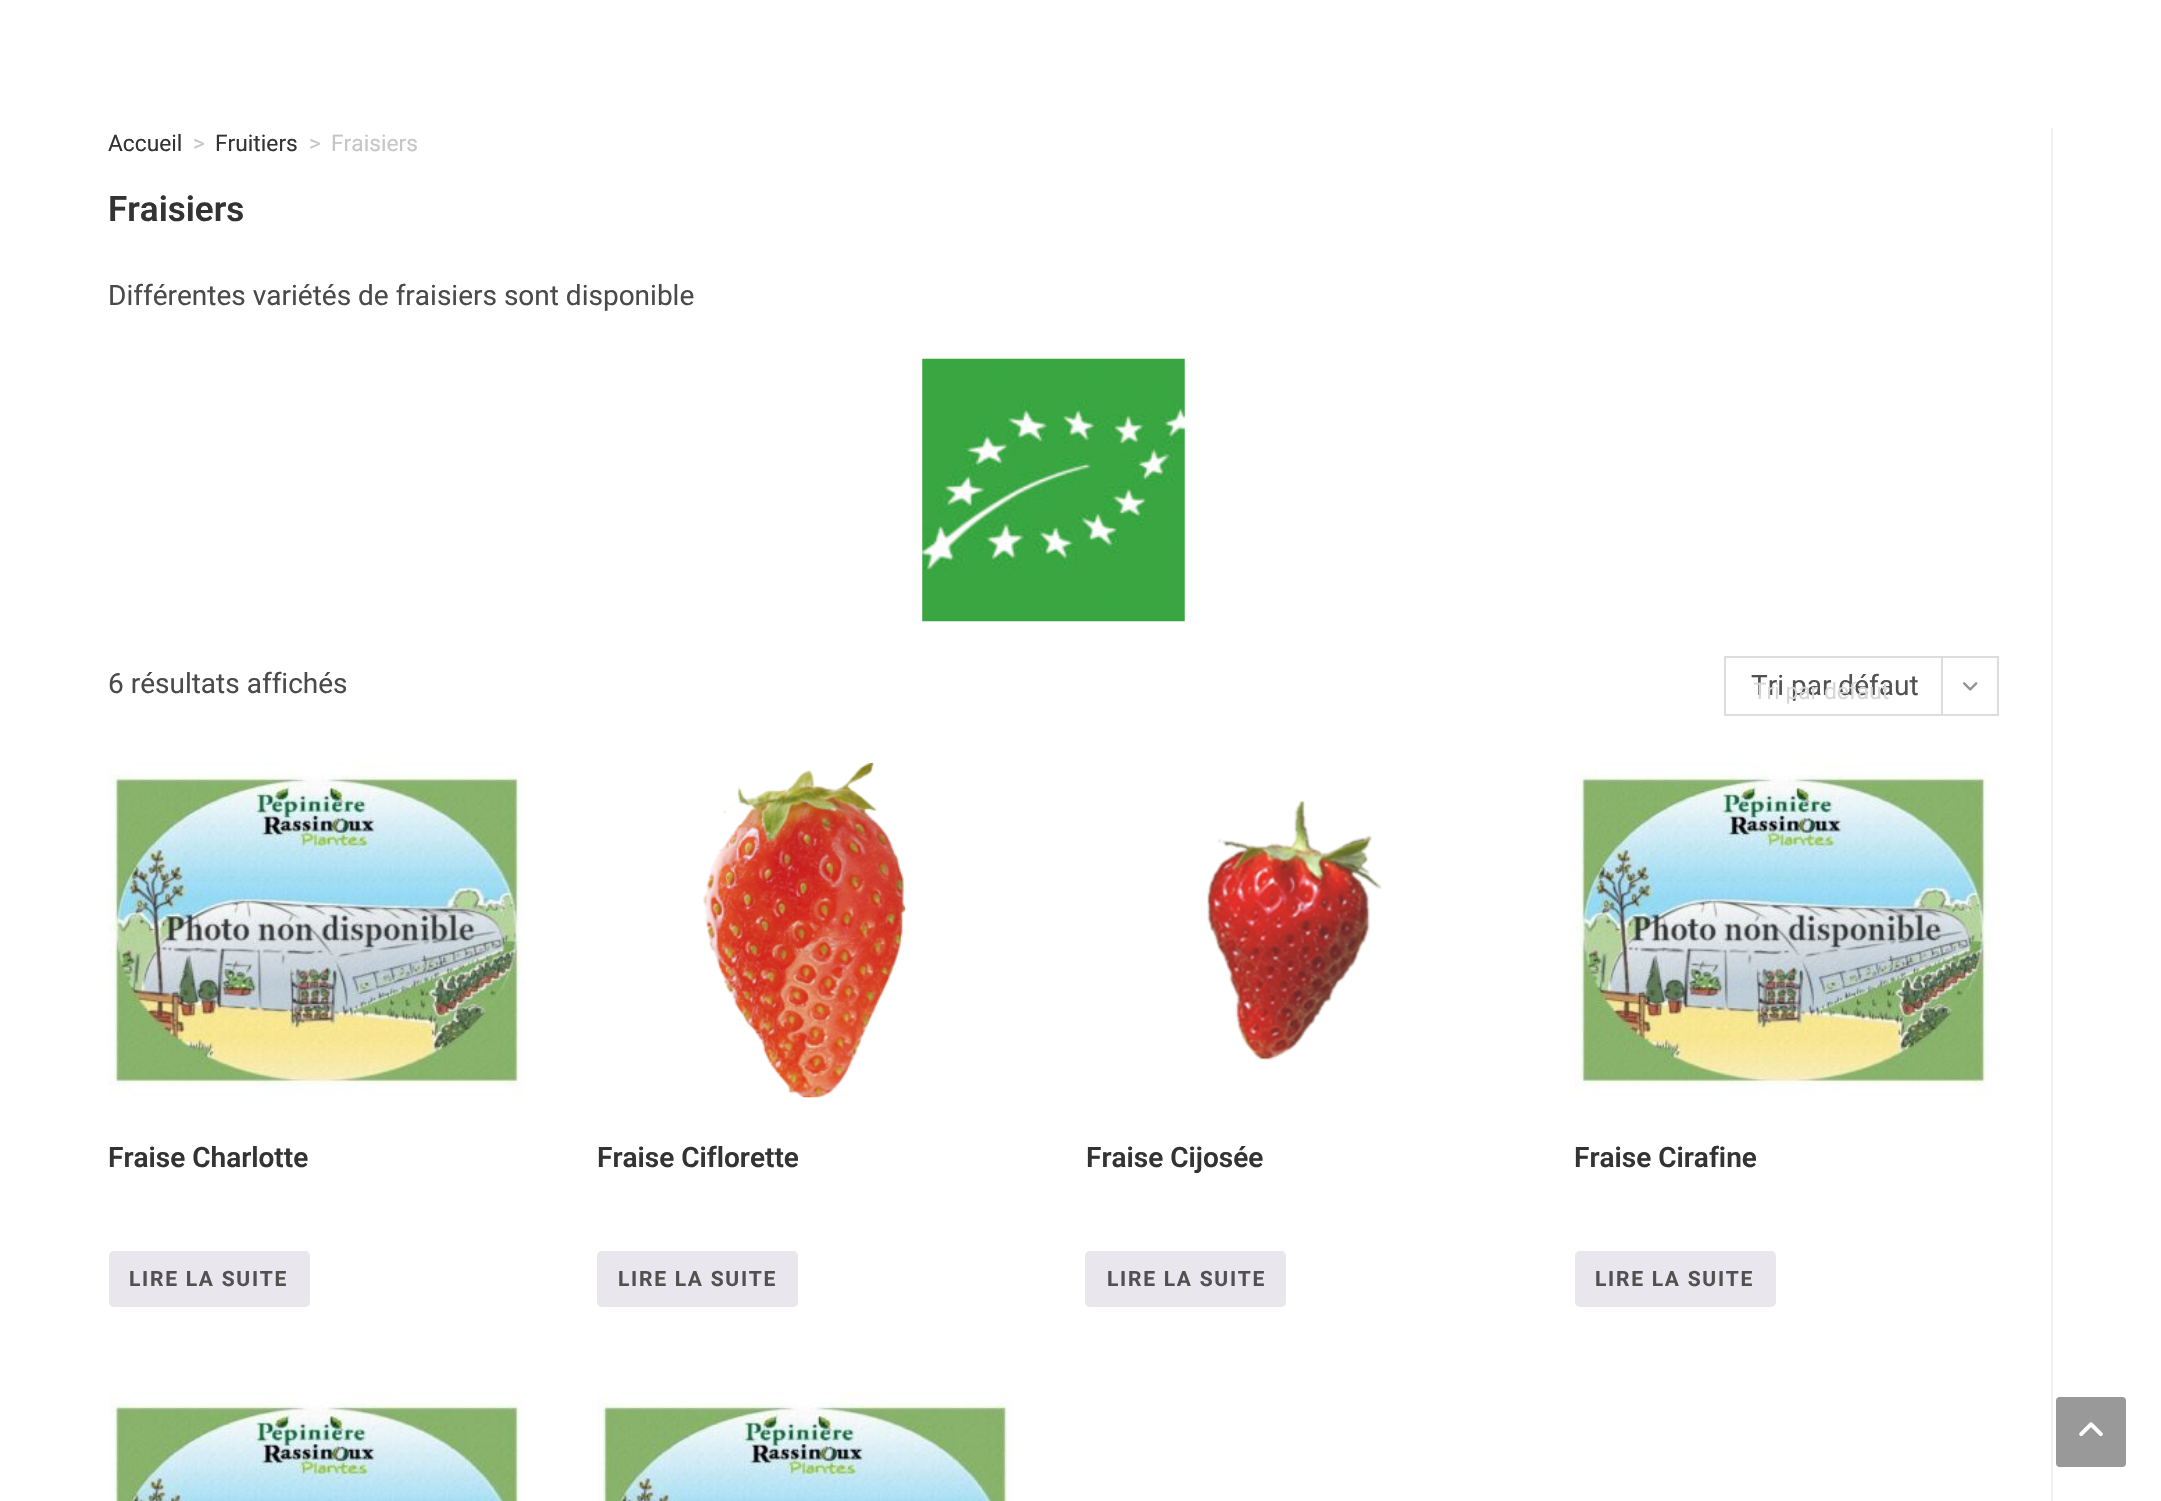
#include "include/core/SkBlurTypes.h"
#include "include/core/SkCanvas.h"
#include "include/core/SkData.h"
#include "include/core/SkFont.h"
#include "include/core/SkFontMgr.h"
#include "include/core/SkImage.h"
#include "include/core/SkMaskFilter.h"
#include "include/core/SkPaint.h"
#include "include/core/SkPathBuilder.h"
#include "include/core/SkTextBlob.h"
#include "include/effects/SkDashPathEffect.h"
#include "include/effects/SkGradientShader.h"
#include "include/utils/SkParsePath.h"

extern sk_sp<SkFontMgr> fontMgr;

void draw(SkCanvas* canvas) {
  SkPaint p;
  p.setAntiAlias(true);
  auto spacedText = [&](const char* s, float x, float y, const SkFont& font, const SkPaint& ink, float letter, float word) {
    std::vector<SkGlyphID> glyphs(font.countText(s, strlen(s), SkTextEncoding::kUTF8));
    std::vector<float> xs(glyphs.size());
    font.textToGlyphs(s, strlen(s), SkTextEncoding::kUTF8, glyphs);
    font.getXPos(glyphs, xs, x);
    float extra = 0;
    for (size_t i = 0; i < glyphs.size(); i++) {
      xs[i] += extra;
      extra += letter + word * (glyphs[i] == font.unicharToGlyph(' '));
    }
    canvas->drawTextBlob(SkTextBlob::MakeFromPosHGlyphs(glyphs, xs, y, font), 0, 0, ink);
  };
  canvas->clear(SK_ColorWHITE);
  p.setColor(SkColorSetRGB(241, 241, 241));
  canvas->drawRect(SkRect::MakeLTRB(2051, 128, 2053, 1501), p);
  canvas->drawImageRect(SkImages::DeferredFromEncodedData(SkData::MakeFromFileName("images/1.png")), SkRect::MakeLTRB(922, 358, 1185, 622), SkSamplingOptions());
  p.setStyle(SkPaint::kStroke_Style);
  p.setStrokeWidth(2);
  p.setColor(SkColorSetRGB(221, 221, 221));
  canvas->drawRect(SkRect::MakeLTRB(1725, 657, 1998, 715), p);
  p.setStyle(SkPaint::kFill_Style);
  canvas->drawRect(SkRect::MakeLTRB(1941, 658, 1943, 714), p);
  canvas->drawImageRect(SkImages::DeferredFromEncodedData(SkData::MakeFromFileName("images/2.png")), SkRect::MakeLTRB(1963, 682, 1978, 691), SkSamplingOptions());
  canvas->drawImageRect(SkImages::DeferredFromEncodedData(SkData::MakeFromFileName("images/3.png")), SkRect::MakeLTRB(108, 763, 525, 1097), SkSamplingOptions());
  p.setColor(SkColorSetRGB(233, 230, 237));
  canvas->drawRoundRect(SkRect::MakeLTRB(109, 1251, 310, 1307), 5, 5, p);
  canvas->drawImageRect(SkImages::DeferredFromEncodedData(SkData::MakeFromFileName("images/4.png")), SkRect::MakeLTRB(703, 763, 907, 1098), SkSamplingOptions());
  canvas->drawRoundRect(SkRect::MakeLTRB(597, 1251, 798, 1307), 5, 5, p);
  canvas->drawImageRect(SkImages::DeferredFromEncodedData(SkData::MakeFromFileName("images/5.png")), SkRect::MakeLTRB(1207, 800, 1382, 1060), SkSamplingOptions());
  canvas->drawRoundRect(SkRect::MakeLTRB(1085, 1251, 1286, 1307), 5, 5, p);
  canvas->drawImageRect(SkImages::DeferredFromEncodedData(SkData::MakeFromFileName("images/6.png")), SkRect::MakeLTRB(1575, 763, 1992, 1097), SkSamplingOptions());
  canvas->drawRoundRect(SkRect::MakeLTRB(1575, 1251, 1776, 1307), 5, 5, p);
  canvas->drawImageRect(SkImages::DeferredFromEncodedData(SkData::MakeFromFileName("images/7.png")), SkRect::MakeLTRB(109, 1391, 525, 1501), SkSamplingOptions());
  canvas->drawImageRect(SkImages::DeferredFromEncodedData(SkData::MakeFromFileName("images/8.png")), SkRect::MakeLTRB(597, 1391, 1013, 1501), SkSamplingOptions());
  p.setColor(SkColorSetRGB(153, 153, 153));
  canvas->drawRoundRect(SkRect::MakeLTRB(2056, 1397, 2126, 1467), 4, 4, p);
  canvas->drawImageRect(SkImages::DeferredFromEncodedData(SkData::MakeFromFileName("images/9.png")), SkRect::MakeLTRB(2079, 1422, 2103, 1436), SkSamplingOptions());
  SkFont font1(fontMgr->matchFamilyStyle("Roboto", SkFontStyle::Normal()), 22.75f);
  font1.setSubpixel(true);
  p.setColor(SkColorSetRGB(51, 51, 51));
  canvas->drawString("Accueil", 108, 151, font1, p);
  p.setColor(SkColorSetRGB(198, 198, 198));
  canvas->drawString(">", 193, 151, font1, p);
  p.setColor(SkColorSetRGB(51, 51, 51));
  canvas->drawString("Fruitiers", 215, 151, font1, p);
  p.setColor(SkColorSetRGB(198, 198, 198));
  canvas->drawString(">", 309, 151, font1, p);
  canvas->drawString("Fraisiers", 331, 151, font1, p);
  SkFont font2(fontMgr->matchFamilyStyle("Roboto", SkFontStyle(600, SkFontStyle::kNormal_Width, SkFontStyle::kUpright_Slant)), 35);
  font2.setSubpixel(true);
  p.setColor(SkColorSetRGB(51, 51, 51));
  canvas->drawString("Fraisiers", 108, 221, font2, p);
  SkFont font3(fontMgr->matchFamilyStyle("Roboto", SkFontStyle::Normal()), 28);
  font3.setSubpixel(true);
  p.setColor(SkColorSetRGB(74, 74, 74));
  canvas->drawString("Différentes variétés de fraisiers sont disponible", 108, 305, font3, p);
  canvas->drawString("6 résultats affichés", 108, 693, font3, p);
  p.setColor(SkColorSetRGB(81, 81, 81));
  canvas->drawString("Tri par défaut", 1751, 695, font3, p);
  canvas->save();
  canvas->clipRect(SkRect::MakeLTRB(1754, 677, 1948, 707));
  p.setColor(SkColorSetRGB(215, 215, 215));
  canvas->drawString("Tri par défaut", 1753, 699, font1, p);
  canvas->restore();
  SkFont font4(fontMgr->matchFamilyStyle("Roboto", SkFontStyle(600, SkFontStyle::kNormal_Width, SkFontStyle::kUpright_Slant)), 28);
  font4.setSubpixel(true);
  p.setColor(SkColorSetRGB(51, 51, 51));
  canvas->drawString("Fraise Charlotte", 108, 1167, font4, p);
  SkFont font5(fontMgr->matchFamilyStyle("Roboto", SkFontStyle::Bold()), 21);
  font5.setSubpixel(true);
  p.setColor(SkColorSetRGB(81, 81, 81));
  spacedText("LIRE LA SUITE", 129, 1286, font5, p, 1.75f, 0);
  p.setColor(SkColorSetRGB(51, 51, 51));
  canvas->drawString("Fraise Ciflorette", 597, 1167, font4, p);
  p.setColor(SkColorSetRGB(81, 81, 81));
  spacedText("LIRE LA SUITE", 618, 1286, font5, p, 1.75f, 0);
  p.setColor(SkColorSetRGB(51, 51, 51));
  canvas->drawString("Fraise Cijosée", 1086, 1167, font4, p);
  p.setColor(SkColorSetRGB(81, 81, 81));
  spacedText("LIRE LA SUITE", 1107, 1286, font5, p, 1.75f, 0);
  p.setColor(SkColorSetRGB(51, 51, 51));
  canvas->drawString("Fraise Cirafine", 1574, 1167, font4, p);
  p.setColor(SkColorSetRGB(81, 81, 81));
  spacedText("LIRE LA SUITE", 1595, 1286, font5, p, 1.75f, 0);
}
